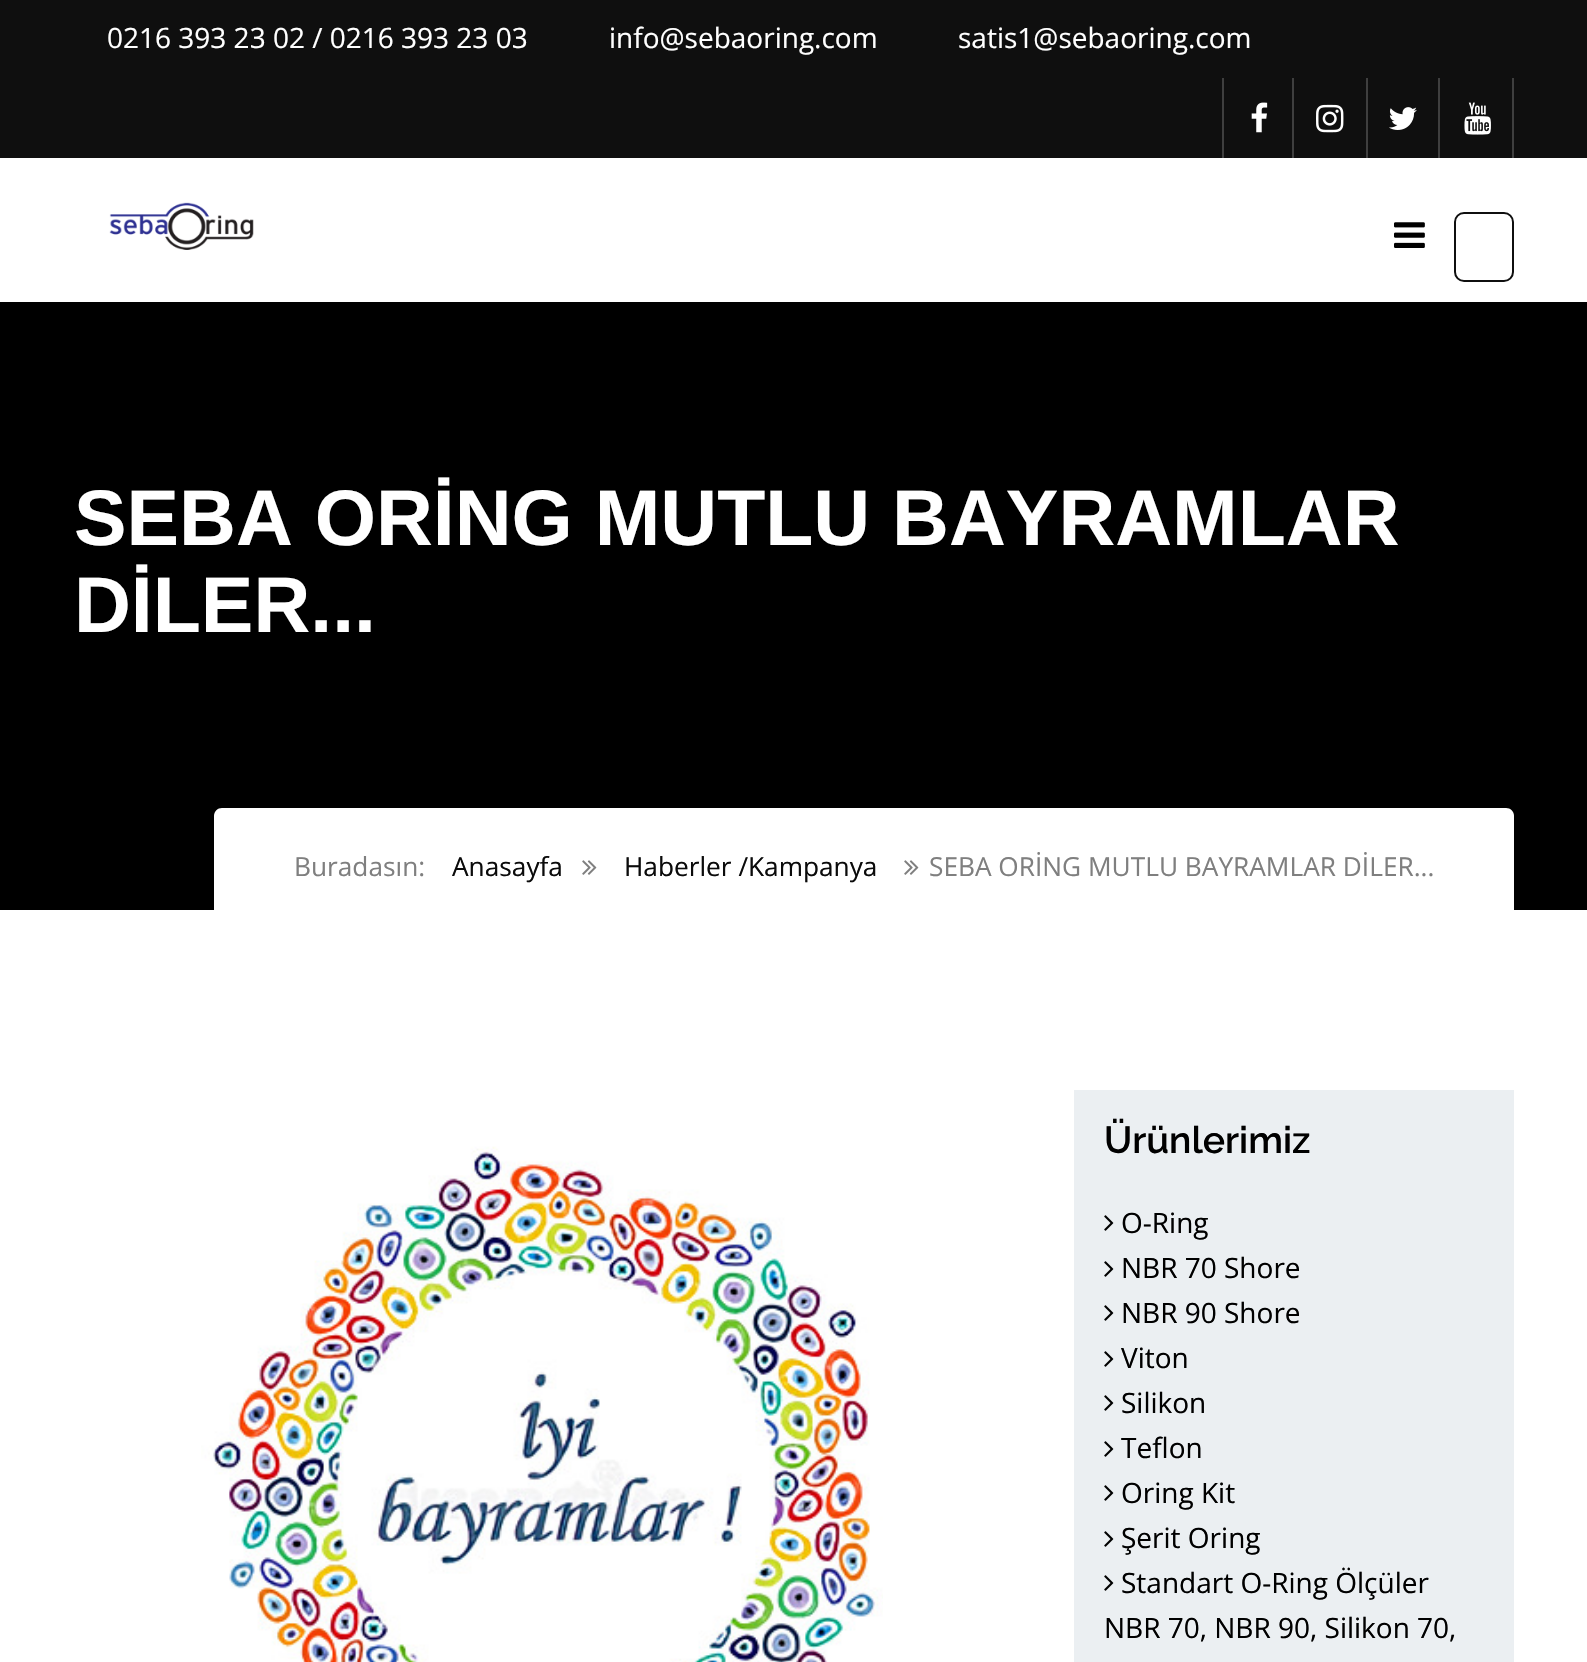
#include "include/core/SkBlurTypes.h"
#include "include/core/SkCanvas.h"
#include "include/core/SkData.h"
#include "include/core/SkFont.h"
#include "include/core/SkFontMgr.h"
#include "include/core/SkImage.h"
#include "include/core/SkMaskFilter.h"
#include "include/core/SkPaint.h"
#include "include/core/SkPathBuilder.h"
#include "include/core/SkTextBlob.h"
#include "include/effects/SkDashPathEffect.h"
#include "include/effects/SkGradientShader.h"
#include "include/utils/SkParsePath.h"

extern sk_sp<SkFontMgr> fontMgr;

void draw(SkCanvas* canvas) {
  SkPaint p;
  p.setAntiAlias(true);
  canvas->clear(SK_ColorWHITE);
  p.setColor(SkColorSetRGB(15, 15, 15));
  canvas->drawRect(SkRect::MakeLTRB(0, 0, 1587, 158), p);
  p.setColor(SkColorSetRGB(63, 63, 63));
  canvas->drawRect(SkRect::MakeLTRB(1292, 78, 1294, 158), p);
  canvas->drawRect(SkRect::MakeLTRB(1222, 78, 1224, 158), p);
  canvas->drawImageRect(SkImages::DeferredFromEncodedData(SkData::MakeFromFileName("images/1.png")), SkRect::MakeLTRB(1251, 102, 1268, 133), SkSamplingOptions());
  canvas->drawRect(SkRect::MakeLTRB(1366, 78, 1368, 158), p);
  canvas->drawImageRect(SkImages::DeferredFromEncodedData(SkData::MakeFromFileName("images/2.png")), SkRect::MakeLTRB(1316, 104, 1344, 133), SkSamplingOptions());
  canvas->drawRect(SkRect::MakeLTRB(1438, 78, 1440, 158), p);
  canvas->drawImageRect(SkImages::DeferredFromEncodedData(SkData::MakeFromFileName("images/3.png")), SkRect::MakeLTRB(1389, 107, 1417, 130), SkSamplingOptions());
  canvas->drawRect(SkRect::MakeLTRB(1512, 78, 1514, 158), p);
  canvas->drawImageRect(SkImages::DeferredFromEncodedData(SkData::MakeFromFileName("images/4.png")), SkRect::MakeLTRB(1464, 102, 1491, 135), SkSamplingOptions());
  canvas->drawImageRect(SkImages::DeferredFromEncodedData(SkData::MakeFromFileName("images/5.png")), SkRect::MakeLTRB(109, 202, 254, 250), SkSamplingOptions());
  canvas->drawImageRect(SkImages::DeferredFromEncodedData(SkData::MakeFromFileName("images/6.png")), SkRect::MakeLTRB(1394, 222, 1425, 248), SkSamplingOptions());
  p.setStyle(SkPaint::kStroke_Style);
  p.setStrokeWidth(2);
  p.setColor(SkColorSetRGB(15, 15, 15));
  canvas->drawRoundRect(SkRect::MakeLTRB(1455, 213, 1513, 281), 9, 9, p);
  p.setStyle(SkPaint::kFill_Style);
  p.setColor(SK_ColorBLACK);
  canvas->drawRect(SkRect::MakeLTRB(0, 302, 1587, 910), p);
  p.setColor(SK_ColorWHITE);
  canvas->drawPath(SkPathBuilder().moveTo(222, 808).lineTo(1506, 808).cubicTo(1510.5f, 808, 1514, 811.5f, 1514, 816).lineTo(1514, 910).lineTo(214, 910).lineTo(214, 816).cubicTo(214, 811.5f, 217.5f, 808, 222, 808).close().detach(), p);
  canvas->drawImageRect(SkImages::DeferredFromEncodedData(SkData::MakeFromFileName("images/7.png")), SkRect::MakeLTRB(582, 860, 597, 875), SkSamplingOptions());
  canvas->drawImageRect(SkImages::DeferredFromEncodedData(SkData::MakeFromFileName("images/7.png")), SkRect::MakeLTRB(904, 860, 919, 875), SkSamplingOptions());
  canvas->drawImageRect(SkImages::DeferredFromEncodedData(SkData::MakeFromFileName("images/8.png")), SkRect::MakeLTRB(201, 1146, 883, 1662), SkSamplingOptions());
  p.setColor(SkColorSetRGB(235, 239, 242));
  canvas->drawRect(SkRect::MakeLTRB(1074, 1090, 1514, 1662), p);
  canvas->drawImageRect(SkImages::DeferredFromEncodedData(SkData::MakeFromFileName("images/9.png")), SkRect::MakeLTRB(1104, 1215, 1114, 1231), SkSamplingOptions());
  canvas->drawImageRect(SkImages::DeferredFromEncodedData(SkData::MakeFromFileName("images/9.png")), SkRect::MakeLTRB(1104, 1261, 1114, 1277), SkSamplingOptions());
  canvas->drawImageRect(SkImages::DeferredFromEncodedData(SkData::MakeFromFileName("images/9.png")), SkRect::MakeLTRB(1104, 1305, 1114, 1321), SkSamplingOptions());
  canvas->drawImageRect(SkImages::DeferredFromEncodedData(SkData::MakeFromFileName("images/9.png")), SkRect::MakeLTRB(1104, 1351, 1114, 1367), SkSamplingOptions());
  canvas->drawImageRect(SkImages::DeferredFromEncodedData(SkData::MakeFromFileName("images/9.png")), SkRect::MakeLTRB(1104, 1395, 1114, 1411), SkSamplingOptions());
  canvas->drawImageRect(SkImages::DeferredFromEncodedData(SkData::MakeFromFileName("images/9.png")), SkRect::MakeLTRB(1104, 1441, 1114, 1457), SkSamplingOptions());
  canvas->drawImageRect(SkImages::DeferredFromEncodedData(SkData::MakeFromFileName("images/9.png")), SkRect::MakeLTRB(1104, 1485, 1114, 1501), SkSamplingOptions());
  canvas->drawImageRect(SkImages::DeferredFromEncodedData(SkData::MakeFromFileName("images/9.png")), SkRect::MakeLTRB(1104, 1531, 1114, 1547), SkSamplingOptions());
  canvas->drawImageRect(SkImages::DeferredFromEncodedData(SkData::MakeFromFileName("images/9.png")), SkRect::MakeLTRB(1104, 1575, 1114, 1591), SkSamplingOptions());
  SkFont font1(fontMgr->matchFamilyStyle("Open Sans", SkFontStyle::Normal()), 28);
  font1.setSubpixel(true);
  p.setColor(SK_ColorWHITE);
  canvas->drawString("0216 393 23 02 / 0216 393 23 03", 107, 48, font1, p);
  canvas->drawString("info@sebaoring.com", 609, 48, font1, p);
  canvas->drawString("satis1@sebaoring.com", 958, 48, font1, p);
  SkFont font2(fontMgr->matchFamilyStyle("Liberation Sans", SkFontStyle::Bold()), 78.75f);
  font2.setSubpixel(true);
  canvas->drawString("SEBA ORİNG MUTLU BAYRAMLAR", 74, 545, font2, p);
  canvas->drawString("DİLER...", 74, 632, font2, p);
  SkFont font3(fontMgr->matchFamilyStyle("Open Sans", SkFontStyle::Normal()), 26.25f);
  font3.setSubpixel(true);
  p.setColor(SkColorSetRGB(127, 127, 127));
  canvas->drawString("Buradasın:", 294, 876, font3, p);
  p.setColor(SkColorSetRGB(11, 11, 11));
  canvas->drawString("Anasayfa", 452, 876, font3, p);
  canvas->drawString("Haberler /Kampanya", 624, 876, font3, p);
  p.setColor(SkColorSetRGB(127, 127, 127));
  canvas->drawString("SEBA ORİNG MUTLU BAYRAMLAR DİLER...", 929, 876, font3, p);
  SkFont font4(fontMgr->matchFamilyStyle("Raleway", SkFontStyle(600, SkFontStyle::kNormal_Width, SkFontStyle::kUpright_Slant)), 37.5f);
  font4.setSubpixel(true);
  p.setColor(SK_ColorBLACK);
  canvas->drawString("Ürünlerimiz", 1104, 1153, font4, p);
  canvas->drawString("O-Ring", 1121, 1233, font1, p);
  canvas->drawString("NBR 70 Shore", 1121, 1278, font1, p);
  canvas->drawString("NBR 90 Shore", 1121, 1323, font1, p);
  canvas->drawString("Viton", 1121, 1368, font1, p);
  canvas->drawString("Silikon", 1121, 1413, font1, p);
  canvas->drawString("Teflon", 1121, 1458, font1, p);
  canvas->drawString("Oring Kit", 1121, 1503, font1, p);
  canvas->drawString("Şerit Oring", 1121, 1548, font1, p);
  canvas->drawString("Standart O-Ring Ölçüler", 1121, 1593, font1, p);
  canvas->drawString("NBR 70, NBR 90, Silikon 70,", 1104, 1638, font1, p);
}
